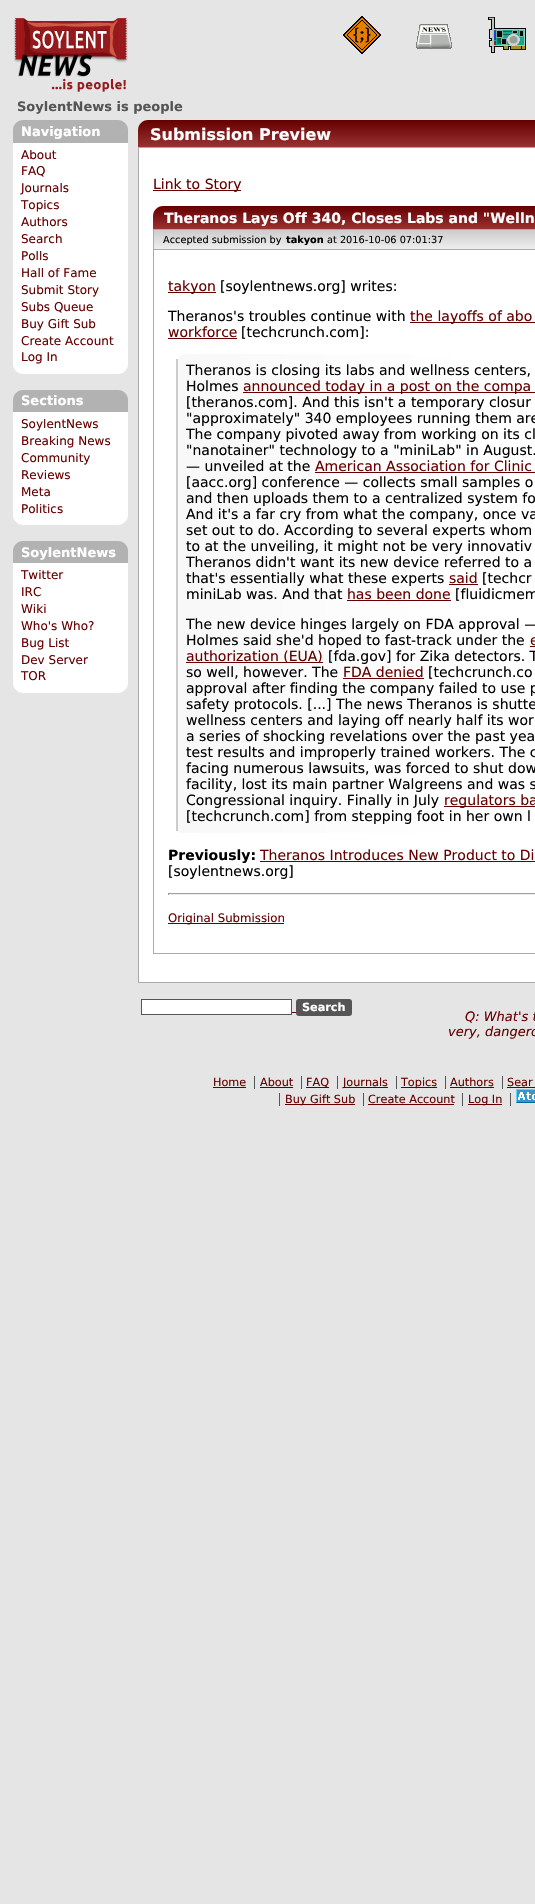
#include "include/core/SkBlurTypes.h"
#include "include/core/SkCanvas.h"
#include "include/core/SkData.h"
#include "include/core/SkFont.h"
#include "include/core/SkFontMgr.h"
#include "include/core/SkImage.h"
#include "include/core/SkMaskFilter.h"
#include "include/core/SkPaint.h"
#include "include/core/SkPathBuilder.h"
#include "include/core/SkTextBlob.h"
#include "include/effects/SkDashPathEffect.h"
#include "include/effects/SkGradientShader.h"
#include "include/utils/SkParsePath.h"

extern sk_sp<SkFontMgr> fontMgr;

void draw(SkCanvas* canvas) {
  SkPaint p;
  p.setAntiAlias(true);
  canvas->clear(SkColorSetRGB(229, 229, 229));
  canvas->drawImageRect(SkImages::DeferredFromEncodedData(SkData::MakeFromFileName("images/1.png")), SkRect::MakeLTRB(14, 18, 128, 92), SkSamplingOptions());
  canvas->drawImageRect(SkImages::DeferredFromEncodedData(SkData::MakeFromFileName("images/2.png")), SkRect::MakeLTRB(343, 16, 381, 54), SkSamplingOptions());
  canvas->drawImageRect(SkImages::DeferredFromEncodedData(SkData::MakeFromFileName("images/3.png")), SkRect::MakeLTRB(416, 24, 452, 49), SkSamplingOptions());
  canvas->drawImageRect(SkImages::DeferredFromEncodedData(SkData::MakeFromFileName("images/4.png")), SkRect::MakeLTRB(488, 17, 526, 53), SkSamplingOptions());
  p.setColor(SkColorSetRGB(178, 178, 178));
  canvas->drawPath(SkPathBuilder().moveTo(23, 120).lineTo(118, 120).cubicTo(123.5f, 120, 128, 124.5f, 128, 130).lineTo(128, 143).lineTo(13, 143).lineTo(13, 130).cubicTo(13, 124.5f, 17.5f, 120, 23, 120).close().detach(), p);
  p.setColor(SK_ColorWHITE);
  canvas->drawPath(SkPathBuilder().moveTo(13, 143).lineTo(128, 143).lineTo(128, 364).cubicTo(128, 369.5f, 123.5f, 374, 118, 374).lineTo(23, 374).cubicTo(17.5f, 374, 13, 369.5f, 13, 364).close().detach(), p);
  p.setColor(SkColorSetRGB(178, 178, 178));
  canvas->drawPath(SkPathBuilder().moveTo(23, 390).lineTo(118, 390).cubicTo(123.5f, 390, 128, 394.5f, 128, 400).lineTo(128, 412).lineTo(13, 412).lineTo(13, 400).cubicTo(13, 394.5f, 17.5f, 390, 23, 390).close().detach(), p);
  p.setColor(SK_ColorWHITE);
  canvas->drawPath(SkPathBuilder().moveTo(13, 412).lineTo(128, 412).lineTo(128, 515).cubicTo(128, 520.5f, 123.5f, 525, 118, 525).lineTo(23, 525).cubicTo(17.5f, 525, 13, 520.5f, 13, 515).close().detach(), p);
  p.setColor(SkColorSetRGB(178, 178, 178));
  canvas->drawPath(SkPathBuilder().moveTo(23, 541).lineTo(118, 541).cubicTo(123.5f, 541, 128, 545.5f, 128, 551).lineTo(128, 563).lineTo(13, 563).lineTo(13, 551).cubicTo(13, 545.5f, 17.5f, 541, 23, 541).close().detach(), p);
  p.setColor(SK_ColorWHITE);
  canvas->drawPath(SkPathBuilder().moveTo(13, 563).lineTo(128, 563).lineTo(128, 683).cubicTo(128, 688.5f, 123.5f, 693, 118, 693).lineTo(23, 693).cubicTo(17.5f, 693, 13, 688.5f, 13, 683).close().detach(), p);
  {
    const SkColor colors[] = {SkColorSetRGB(102, 0, 0), SkColorSetRGB(153, 51, 51)};
    const float stops[] = {0, 1};
    const SkPoint ends[] = {{423, 120}, {423, 147}};
    p.setShader(SkGradientShader::MakeLinear(ends, colors, stops, 2, SkTileMode::kClamp));
    p.setAlpha(255);
  }
  canvas->drawPath(SkPathBuilder().moveTo(148, 120).lineTo(535, 120).cubicTo(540.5f, 120, 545, 124.5f, 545, 130).lineTo(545, 147).lineTo(138, 147).lineTo(138, 130).cubicTo(138, 124.5f, 142.5f, 120, 148, 120).close().detach(), p);
  p.setShader(nullptr);
  p.setColor(SK_ColorWHITE);
  canvas->drawRect(SkRect::MakeLTRB(138.5f, 147.5f, 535.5f, 982.5f), p);
  p.setStyle(SkPaint::kStroke_Style);
  p.setStrokeWidth(1);
  p.setColor(SkColorSetRGB(170, 170, 170));
  canvas->drawRect(SkRect::MakeLTRB(138.5f, 147.5f, 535.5f, 982.5f), p);
  p.setStyle(SkPaint::kFill_Style);
  p.setColor(SkColorSetRGB(102, 0, 0));
  canvas->drawRect(SkRect::MakeLTRB(153, 190, 241, 191), p);
  {
    const SkColor colors[] = {SkColorSetRGB(102, 0, 0), SkColorSetRGB(153, 51, 51)};
    const float stops[] = {0, 1};
    const SkPoint ends[] = {{423, 206}, {423, 229}};
    p.setShader(SkGradientShader::MakeLinear(ends, colors, stops, 2, SkTileMode::kClamp));
    p.setAlpha(255);
  }
  canvas->drawPath(SkPathBuilder().moveTo(163, 206).lineTo(535, 206).cubicTo(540.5f, 206, 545, 210.5f, 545, 216).lineTo(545, 229).lineTo(153, 229).lineTo(153, 216).cubicTo(153, 210.5f, 157.5f, 206, 163, 206).close().detach(), p);
  {
    const SkColor colors[] = {SkColorSetRGB(204, 204, 204), SkColorSetRGB(238, 238, 238)};
    const float stops[] = {0, 1};
    const SkPoint ends[] = {{423, 230}, {423, 249}};
    p.setShader(SkGradientShader::MakeLinear(ends, colors, stops, 2, SkTileMode::kClamp));
    p.setAlpha(255);
  }
  canvas->drawRect(SkRect::MakeLTRB(154, 230, 535, 249), p);
  p.setStyle(SkPaint::kStroke_Style);
  p.setShader(nullptr);
  p.setColor(SkColorSetRGB(170, 170, 170));
  canvas->drawRect(SkRect::MakeLTRB(153.5f, 229.5f, 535.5f, 249.5f), p);
  p.setStyle(SkPaint::kFill_Style);
  canvas->drawRect(SkRect::MakeLTRB(153, 953, 535, 954), p);
  canvas->drawRect(SkRect::MakeLTRB(153, 250, 154, 954), p);
  p.setColor(SkColorSetRGB(102, 0, 0));
  canvas->drawRect(SkRect::MakeLTRB(168, 292, 216, 293), p);
  canvas->drawRect(SkRect::MakeLTRB(410, 322, 535, 323), p);
  canvas->drawRect(SkRect::MakeLTRB(168, 338, 237, 339), p);
  canvas->save();
  canvas->clipPath(SkPathBuilder().moveTo(186, 354).lineTo(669, 354).lineTo(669, 833).lineTo(181, 833).cubicTo(178, 833, 176, 831, 176, 828).lineTo(176, 364).cubicTo(176, 358.5f, 180.5f, 354, 186, 354).close().detach(), true);
  {
    const SkColor colors[] = {SkColorSetRGB(248, 248, 248), SK_ColorWHITE};
    const float stops[] = {0, 0.6f};
    const SkPoint ends[] = {{178, 594}, {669, 594}};
    p.setShader(SkGradientShader::MakeLinear(ends, colors, stops, 2, SkTileMode::kClamp));
    p.setAlpha(255);
  }
  canvas->drawRect(SkRect::MakeLTRB(178, 354, 535, 833), p);
  canvas->restore();
  p.setShader(nullptr);
  p.setColor(SkColorSetRGB(204, 204, 204));
  canvas->drawRect(SkRect::MakeLTRB(176, 359, 178, 831), p);
  p.setColor(SkColorSetRGB(102, 0, 0));
  canvas->drawRect(SkRect::MakeLTRB(243, 392, 535, 393), p);
  canvas->drawRect(SkRect::MakeLTRB(315, 472, 535, 473), p);
  canvas->drawRect(SkRect::MakeLTRB(449, 584, 478, 585), p);
  canvas->drawRect(SkRect::MakeLTRB(347, 600, 451, 601), p);
  canvas->drawRect(SkRect::MakeLTRB(530, 646, 535, 647), p);
  canvas->drawRect(SkRect::MakeLTRB(186, 662, 323, 663), p);
  canvas->drawRect(SkRect::MakeLTRB(343, 678, 424, 679), p);
  canvas->drawRect(SkRect::MakeLTRB(444, 806, 535, 807), p);
  canvas->drawRect(SkRect::MakeLTRB(260, 861, 535, 862), p);
  p.setColor(SkColorSetRGB(159, 159, 159));
  canvas->drawRect(SkRect::MakeLTRB(168, 893, 535, 894), p);
  p.setColor(SkColorSetRGB(238, 238, 238));
  canvas->drawRect(SkRect::MakeLTRB(168, 894, 535, 895), p);
  p.setColor(SkColorSetRGB(159, 159, 159));
  canvas->drawRect(SkRect::MakeLTRB(168, 893, 169, 895), p);
  p.setColor(SkColorSetRGB(102, 0, 0));
  canvas->drawRect(SkRect::MakeLTRB(168, 923, 284, 924), p);
  p.setColor(SK_ColorWHITE);
  canvas->drawRect(SkRect::MakeLTRB(141.5f, 999.5f, 291.5f, 1014.5f), p);
  p.setStyle(SkPaint::kStroke_Style);
  p.setColor(SkColorSetRGB(85, 85, 85));
  canvas->drawRect(SkRect::MakeLTRB(141.5f, 999.5f, 291.5f, 1014.5f), p);
  p.setStyle(SkPaint::kFill_Style);
  canvas->drawRoundRect(SkRect::MakeLTRB(296, 999, 352, 1016), 3, 3, p);
  p.setColor(SkColorSetRGB(102, 0, 0));
  canvas->drawRect(SkRect::MakeLTRB(292, 1012, 296, 1013), p);
  canvas->drawRect(SkRect::MakeLTRB(213, 1087, 246, 1088), p);
  p.setColor(SkColorSetRGB(85, 85, 85));
  canvas->drawRect(SkRect::MakeLTRB(254, 1076, 255, 1089), p);
  p.setColor(SkColorSetRGB(102, 0, 0));
  canvas->drawRect(SkRect::MakeLTRB(260, 1087, 293, 1088), p);
  p.setColor(SkColorSetRGB(85, 85, 85));
  canvas->drawRect(SkRect::MakeLTRB(301, 1076, 302, 1089), p);
  p.setColor(SkColorSetRGB(102, 0, 0));
  canvas->drawRect(SkRect::MakeLTRB(306, 1087, 329, 1088), p);
  p.setColor(SkColorSetRGB(85, 85, 85));
  canvas->drawRect(SkRect::MakeLTRB(337, 1076, 338, 1089), p);
  p.setColor(SkColorSetRGB(102, 0, 0));
  canvas->drawRect(SkRect::MakeLTRB(343, 1087, 388, 1088), p);
  p.setColor(SkColorSetRGB(85, 85, 85));
  canvas->drawRect(SkRect::MakeLTRB(396, 1076, 397, 1089), p);
  p.setColor(SkColorSetRGB(102, 0, 0));
  canvas->drawRect(SkRect::MakeLTRB(401, 1087, 437, 1088), p);
  p.setColor(SkColorSetRGB(85, 85, 85));
  canvas->drawRect(SkRect::MakeLTRB(445, 1076, 446, 1089), p);
  p.setColor(SkColorSetRGB(102, 0, 0));
  canvas->drawRect(SkRect::MakeLTRB(450, 1087, 494, 1088), p);
  p.setColor(SkColorSetRGB(85, 85, 85));
  canvas->drawRect(SkRect::MakeLTRB(502, 1076, 503, 1089), p);
  p.setColor(SkColorSetRGB(102, 0, 0));
  canvas->drawRect(SkRect::MakeLTRB(507, 1087, 535, 1088), p);
  p.setColor(SkColorSetRGB(85, 85, 85));
  canvas->drawRect(SkRect::MakeLTRB(279, 1093, 280, 1106), p);
  p.setColor(SkColorSetRGB(102, 0, 0));
  canvas->drawRect(SkRect::MakeLTRB(285, 1104, 355, 1105), p);
  p.setColor(SkColorSetRGB(85, 85, 85));
  canvas->drawRect(SkRect::MakeLTRB(363, 1093, 364, 1106), p);
  p.setColor(SkColorSetRGB(102, 0, 0));
  canvas->drawRect(SkRect::MakeLTRB(368, 1104, 454, 1105), p);
  p.setColor(SkColorSetRGB(85, 85, 85));
  canvas->drawRect(SkRect::MakeLTRB(462, 1093, 463, 1106), p);
  p.setColor(SkColorSetRGB(102, 0, 0));
  canvas->drawRect(SkRect::MakeLTRB(468, 1104, 502, 1105), p);
  p.setColor(SkColorSetRGB(85, 85, 85));
  canvas->drawRect(SkRect::MakeLTRB(510, 1093, 511, 1106), p);
  canvas->drawImageRect(SkImages::DeferredFromEncodedData(SkData::MakeFromFileName("images/5.png")), SkRect::MakeLTRB(516, 1089, 535, 1103), SkSamplingOptions());
  SkFont font1(fontMgr->matchFamilyStyle("DejaVu Sans", SkFontStyle::Bold()), 13);
  font1.setSubpixel(true);
  canvas->drawString("SoylentNews is people", 17, 111, font1, p);
  p.setColor(SK_ColorWHITE);
  canvas->drawString("Navigation", 21, 136, font1, p);
  SkFont font2(fontMgr->matchFamilyStyle("DejaVu Sans", SkFontStyle::Normal()), 12);
  font2.setSubpixel(true);
  p.setColor(SkColorSetRGB(102, 0, 0));
  canvas->drawString("About", 21, 159, font2, p);
  canvas->drawString("FAQ", 21, 175, font2, p);
  canvas->drawString("Journals", 21, 192, font2, p);
  canvas->drawString("Topics", 21, 209, font2, p);
  canvas->drawString("Authors", 21, 226, font2, p);
  canvas->drawString("Search", 21, 243, font2, p);
  canvas->drawString("Polls", 21, 260, font2, p);
  canvas->drawString("Hall of Fame", 21, 277, font2, p);
  canvas->drawString("Submit Story", 21, 294, font2, p);
  canvas->drawString("Subs Queue", 21, 311, font2, p);
  canvas->drawString("Buy Gift Sub", 21, 328, font2, p);
  canvas->drawString("Create Account", 21, 345, font2, p);
  canvas->drawString("Log In", 21, 361, font2, p);
  p.setColor(SK_ColorWHITE);
  canvas->drawString("Sections", 21, 405, font1, p);
  p.setColor(SkColorSetRGB(102, 0, 0));
  canvas->drawString("SoylentNews", 21, 428, font2, p);
  canvas->drawString("Breaking News", 21, 445, font2, p);
  canvas->drawString("Community", 21, 462, font2, p);
  canvas->drawString("Reviews", 21, 479, font2, p);
  canvas->drawString("Meta", 21, 496, font2, p);
  canvas->drawString("Politics", 21, 513, font2, p);
  p.setColor(SK_ColorWHITE);
  canvas->drawString("SoylentNews", 21, 557, font1, p);
  p.setColor(SkColorSetRGB(102, 0, 0));
  canvas->drawString("Twitter", 21, 579, font2, p);
  canvas->drawString("IRC", 21, 596, font2, p);
  canvas->drawString("Wiki", 21, 613, font2, p);
  canvas->drawString("Who's Who?", 21, 630, font2, p);
  canvas->drawString("Bug List", 21, 647, font2, p);
  canvas->drawString("Dev Server", 21, 664, font2, p);
  canvas->drawString("TOR", 21, 680, font2, p);
  SkFont font3(fontMgr->matchFamilyStyle("DejaVu Sans", SkFontStyle::Bold()), 16);
  font3.setSubpixel(true);
  p.setColor(SK_ColorWHITE);
  canvas->drawString("Submission Preview", 150, 140, font3, p);
  SkFont font4(fontMgr->matchFamilyStyle("DejaVu Sans", SkFontStyle::Normal()), 14);
  font4.setSubpixel(true);
  p.setColor(SkColorSetRGB(102, 0, 0));
  canvas->drawString("Link to Story", 153, 189, font4, p);
  SkFont font5(fontMgr->matchFamilyStyle("DejaVu Sans", SkFontStyle::Bold()), 14);
  font5.setSubpixel(true);
  p.setColor(SK_ColorWHITE);
  canvas->drawString("Theranos Lays Off 340, Closes Labs and \"Welln", 164, 223, font5, p);
  SkFont font6(fontMgr->matchFamilyStyle("DejaVu Sans", SkFontStyle::Normal()), 9.75f);
  font6.setSubpixel(true);
  p.setColor(SK_ColorBLACK);
  canvas->drawString("Accepted submission by", 163, 243, font6, p);
  SkFont font7(fontMgr->matchFamilyStyle("DejaVu Sans", SkFontStyle::Bold()), 9.75f);
  font7.setSubpixel(true);
  canvas->drawString("takyon", 286, 243, font7, p);
  canvas->drawString("at 2016-10-06 07:01:37", 327, 243, font6, p);
  p.setColor(SkColorSetRGB(102, 0, 0));
  canvas->drawString("takyon", 168, 291, font4, p);
  p.setColor(SK_ColorBLACK);
  canvas->drawString("[soylentnews.org] writes:", 220, 291, font4, p);
  canvas->drawString("Theranos's troubles continue with", 168, 321, font4, p);
  p.setColor(SkColorSetRGB(102, 0, 0));
  canvas->drawString("the layoffs of abo", 410, 321, font4, p);
  canvas->drawString("workforce", 168, 337, font4, p);
  p.setColor(SK_ColorBLACK);
  canvas->drawString("[techcrunch.com]:", 241, 337, font4, p);
  canvas->drawString("Theranos is closing its labs and wellness centers,", 186, 375, font4, p);
  canvas->drawString("Holmes", 186, 391, font4, p);
  p.setColor(SkColorSetRGB(102, 0, 0));
  canvas->drawString("announced today in a post on the compa", 243, 391, font4, p);
  p.setColor(SK_ColorBLACK);
  canvas->drawString("[theranos.com]. And this isn't a temporary closur", 186, 407, font4, p);
  canvas->drawString("\"approximately\" 340 employees running them are", 186, 423, font4, p);
  canvas->drawString("The company pivoted away from working on its cl", 186, 439, font4, p);
  canvas->drawString("\"nanotainer\" technology to a \"miniLab\" in August.", 186, 455, font4, p);
  canvas->drawString("— unveiled at the", 186, 471, font4, p);
  p.setColor(SkColorSetRGB(102, 0, 0));
  canvas->drawString("American Association for Clinic", 315, 471, font4, p);
  p.setColor(SK_ColorBLACK);
  canvas->drawString("[aacc.org] conference — collects small samples o", 186, 487, font4, p);
  canvas->drawString("and then uploads them to a centralized system fo", 186, 503, font4, p);
  canvas->drawString("And it's a far cry from what the company, once va", 186, 519, font4, p);
  canvas->drawString("set out to do. According to several experts whom", 186, 535, font4, p);
  canvas->drawString("to at the unveiling, it might not be very innovativ", 186, 551, font4, p);
  canvas->drawString("Theranos didn't want its new device referred to a", 186, 567, font4, p);
  canvas->drawString("that's essentially what these experts", 186, 583, font4, p);
  p.setColor(SkColorSetRGB(102, 0, 0));
  canvas->drawString("said", 449, 583, font4, p);
  p.setColor(SK_ColorBLACK);
  canvas->drawString("[techcr", 482, 583, font4, p);
  canvas->drawString("miniLab was. And that", 186, 599, font4, p);
  p.setColor(SkColorSetRGB(102, 0, 0));
  canvas->drawString("has been done", 347, 599, font4, p);
  p.setColor(SK_ColorBLACK);
  canvas->drawString("[fluidicmem", 455, 599, font4, p);
  canvas->drawString("The new device hinges largely on FDA approval —", 186, 629, font4, p);
  canvas->drawString("Holmes said she'd hoped to fast-track under the", 186, 645, font4, p);
  p.setColor(SkColorSetRGB(102, 0, 0));
  canvas->drawString("e", 530, 645, font4, p);
  canvas->drawString("authorization (EUA)", 186, 661, font4, p);
  p.setColor(SK_ColorBLACK);
  canvas->drawString("[fda.gov] for Zika detectors. T", 328, 661, font4, p);
  canvas->drawString("so well, however. The", 186, 677, font4, p);
  p.setColor(SkColorSetRGB(102, 0, 0));
  canvas->drawString("FDA denied", 343, 677, font4, p);
  p.setColor(SK_ColorBLACK);
  canvas->drawString("[techcrunch.co", 428, 677, font4, p);
  canvas->drawString("approval after finding the company failed to use p", 186, 693, font4, p);
  canvas->drawString("safety protocols. [...] The news Theranos is shutte", 186, 709, font4, p);
  canvas->drawString("wellness centers and laying off nearly half its wor", 186, 725, font4, p);
  canvas->drawString("a series of shocking revelations over the past yea", 186, 741, font4, p);
  canvas->drawString("test results and improperly trained workers. The c", 186, 757, font4, p);
  canvas->drawString("facing numerous lawsuits, was forced to shut dow", 186, 773, font4, p);
  canvas->drawString("facility, lost its main partner Walgreens and was s", 186, 789, font4, p);
  canvas->drawString("Congressional inquiry. Finally in July", 186, 805, font4, p);
  p.setColor(SkColorSetRGB(102, 0, 0));
  canvas->drawString("regulators ba", 444, 805, font4, p);
  p.setColor(SK_ColorBLACK);
  canvas->drawString("[techcrunch.com] from stepping foot in her own l", 186, 821, font4, p);
  canvas->drawString("Previously:", 168, 860, font5, p);
  p.setColor(SkColorSetRGB(102, 0, 0));
  canvas->drawString("Theranos Introduces New Product to Di", 260, 860, font4, p);
  p.setColor(SK_ColorBLACK);
  canvas->drawString("[soylentnews.org]", 168, 876, font4, p);
  SkFont font8(fontMgr->matchFamilyStyle("DejaVu Sans", SkFontStyle::Normal()), 11.75f);
  font8.setSubpixel(true);
  p.setColor(SkColorSetRGB(102, 0, 0));
  canvas->drawString("Original Submission", 168, 922, font8, p);
  SkFont font9(fontMgr->matchFamilyStyle("DejaVu Sans", SkFontStyle::Bold()), 11.25f);
  font9.setSubpixel(true);
  p.setColor(SK_ColorWHITE);
  canvas->drawString("Search", 302, 1011, font9, p);
  SkFont font10(fontMgr->matchFamilyStyle("DejaVu Sans", SkFontStyle::Italic()), 13);
  font10.setSubpixel(true);
  p.setColor(SkColorSetRGB(102, 0, 0));
  canvas->drawString("Q: What's t", 465, 1021, font10, p);
  canvas->drawString("very, dangero", 448, 1036, font10, p);
  SkFont font11(fontMgr->matchFamilyStyle("DejaVu Sans", SkFontStyle::Normal()), 11.25f);
  font11.setSubpixel(true);
  canvas->drawString("Home", 213, 1086, font11, p);
  canvas->drawString("About", 260, 1086, font11, p);
  canvas->drawString("FAQ", 306, 1086, font11, p);
  canvas->drawString("Journals", 343, 1086, font11, p);
  canvas->drawString("Topics", 401, 1086, font11, p);
  canvas->drawString("Authors", 450, 1086, font11, p);
  canvas->drawString("Sear", 507, 1086, font11, p);
  canvas->drawString("Buy Gift Sub", 285, 1103, font11, p);
  canvas->drawString("Create Account", 368, 1103, font11, p);
  canvas->drawString("Log In", 468, 1103, font11, p);
}
